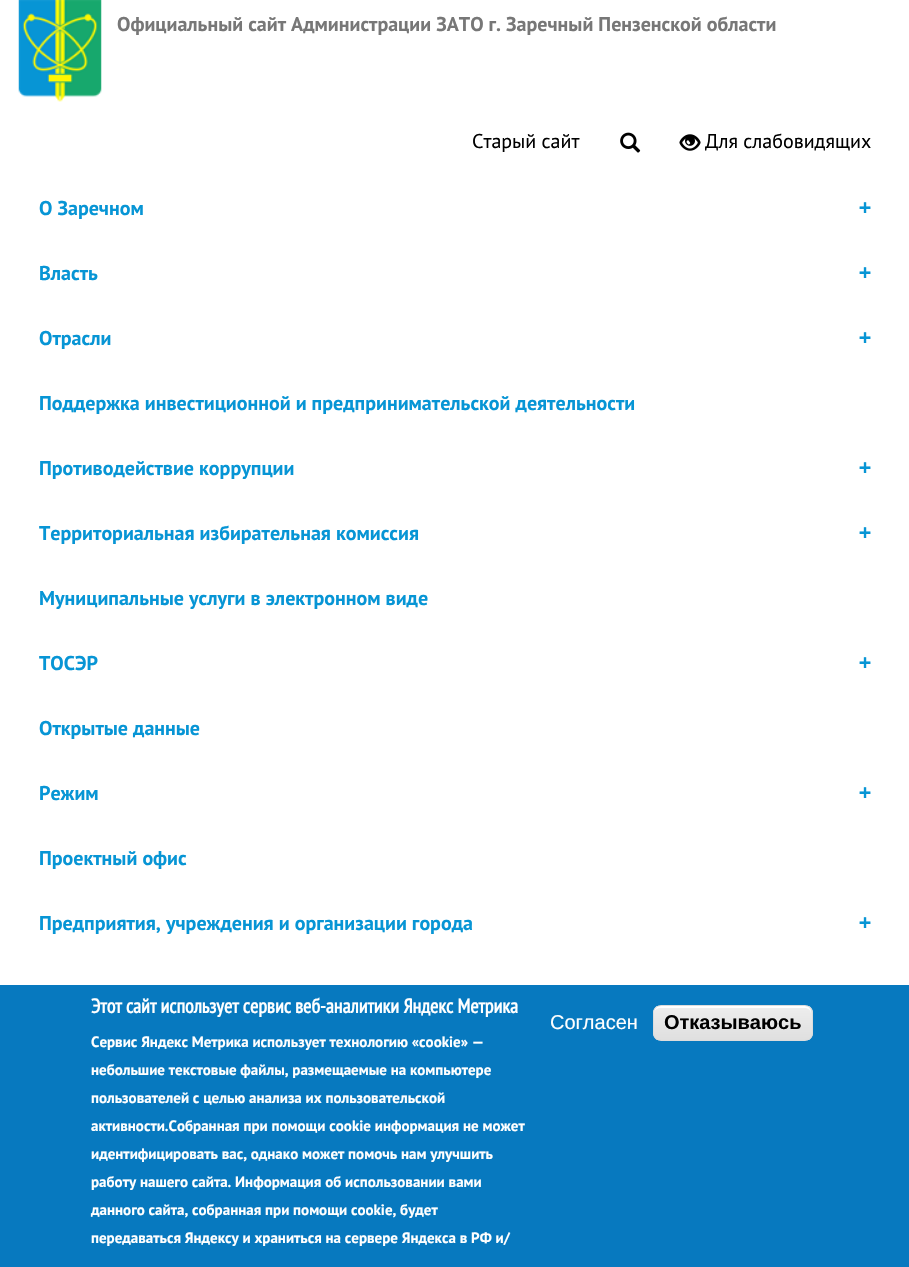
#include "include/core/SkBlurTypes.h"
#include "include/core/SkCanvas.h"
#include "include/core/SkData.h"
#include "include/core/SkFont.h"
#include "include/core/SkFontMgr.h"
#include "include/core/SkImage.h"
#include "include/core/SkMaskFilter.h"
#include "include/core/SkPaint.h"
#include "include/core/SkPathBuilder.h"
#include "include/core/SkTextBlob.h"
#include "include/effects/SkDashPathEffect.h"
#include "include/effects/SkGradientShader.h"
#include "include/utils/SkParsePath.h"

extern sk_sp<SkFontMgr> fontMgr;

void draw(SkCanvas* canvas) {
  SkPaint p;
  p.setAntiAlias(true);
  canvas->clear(SK_ColorWHITE);
  canvas->drawImageRect(SkImages::DeferredFromEncodedData(SkData::MakeFromFileName("images/1.png")), SkRect::MakeLTRB(18, 0, 102, 102), SkSamplingOptions());
  canvas->drawImageRect(SkImages::DeferredFromEncodedData(SkData::MakeFromFileName("images/2.png")), SkRect::MakeLTRB(620, 132, 641, 153), SkSamplingOptions());
  canvas->drawImageRect(SkImages::DeferredFromEncodedData(SkData::MakeFromFileName("images/3.png")), SkRect::MakeLTRB(679, 134, 701, 151), SkSamplingOptions());
  p.setColor(SkColorSetRGB(7, 121, 191));
  canvas->drawRect(SkRect::MakeLTRB(0, 985, 909, 1267), p);
  canvas->save();
  canvas->clipPath(SkPathBuilder().moveTo(661, 1005).lineTo(805, 1005).cubicTo(809.5f, 1005, 813, 1008.5f, 813, 1013).lineTo(813, 1033).cubicTo(813, 1037.5f, 809.5f, 1041, 805, 1041).lineTo(661, 1041).cubicTo(656.5f, 1041, 653, 1037.5f, 653, 1033).lineTo(653, 1013).cubicTo(653, 1008.5f, 656.5f, 1005, 661, 1005).close().detach(), true);
  {
    const SkColor colors[] = {SkColorSetRGB(237, 237, 237), SkColorSetRGB(223, 223, 223)};
    const float stops[] = {0.05f, 1};
    const SkPoint ends[] = {{733, 1006}, {733, 1040}};
    p.setShader(SkGradientShader::MakeLinear(ends, colors, stops, 2, SkTileMode::kClamp));
    p.setAlpha(255);
  }
  canvas->drawRect(SkRect::MakeLTRB(653, 1006, 813, 1040), p);
  canvas->restore();
  p.setShader(nullptr);
  p.setColor(SK_ColorWHITE);
  canvas->drawPath(SkPathBuilder().moveTo(660, 1008).lineTo(805, 1008).cubicTo(808, 1008, 811, 1010, 811, 1014).lineTo(811, 1012).cubicTo(811, 1009, 808, 1006, 805, 1006).lineTo(660, 1006).cubicTo(657, 1006, 654, 1009, 654, 1012).lineTo(654, 1014).cubicTo(654, 1010, 657, 1008, 660, 1008).close().detach(), p);
  p.setStyle(SkPaint::kStroke_Style);
  p.setStrokeWidth(1);
  p.setColor(SkColorSetRGB(220, 220, 220));
  canvas->drawRoundRect(SkRect::MakeLTRB(653.5f, 1005.5f, 812.5f, 1040.5f), 7.5f, 7.5f, p);
  SkFont font1(fontMgr->matchFamilyStyle("PT Sans", SkFontStyle::Bold()), 20);
  font1.setSubpixel(true);
  p.setStyle(SkPaint::kFill_Style);
  p.setColor(SkColorSetRGB(119, 119, 119));
  canvas->drawString("Официальный сайт Администрации ЗАТО г. Заречный Пензенской области", 117, 31, font1, p);
  SkFont font2(fontMgr->matchFamilyStyle("PT Sans", SkFontStyle::Normal()), 20);
  font2.setSubpixel(true);
  p.setColor(SK_ColorBLACK);
  canvas->drawString("Старый сайт", 472, 148, font2, p);
  canvas->drawString("Для слабовидящих", 705, 148, font2, p);
  p.setColor(SkColorSetRGB(7, 149, 213));
  canvas->drawString("О Заречном", 39, 215, font1, p);
  SkFont font3(fontMgr->matchFamilyStyle("DejaVu Sans Mono", SkFontStyle::Bold()), 20);
  font3.setSubpixel(true);
  canvas->drawString("+", 859, 214, font3, p);
  canvas->drawString("Власть", 39, 280, font1, p);
  canvas->drawString("+", 859, 279, font3, p);
  canvas->drawString("Отрасли", 39, 345, font1, p);
  canvas->drawString("+", 859, 344, font3, p);
  canvas->drawString("Поддержка инвестиционной и предпринимательской деятельности", 39, 410, font1, p);
  canvas->drawString("Противодействие коррупции", 39, 475, font1, p);
  canvas->drawString("+", 859, 474, font3, p);
  canvas->drawString("Территориальная избирательная комиссия", 39, 540, font1, p);
  canvas->drawString("+", 859, 539, font3, p);
  canvas->drawString("Муниципальные услуги в электронном виде", 39, 605, font1, p);
  canvas->drawString("ТОСЭР", 39, 670, font1, p);
  canvas->drawString("+", 859, 669, font3, p);
  canvas->drawString("Открытые данные", 39, 735, font1, p);
  canvas->drawString("Режим", 39, 800, font1, p);
  canvas->drawString("+", 859, 799, font3, p);
  canvas->drawString("Проектный офис", 39, 865, font1, p);
  canvas->drawString("Предприятия, учреждения и организации города", 39, 930, font1, p);
  canvas->drawString("+", 859, 929, font3, p);
  SkFont font4(fontMgr->matchFamilyStyle("PT Sans Narrow", SkFontStyle::Bold()), 20);
  font4.setSubpixel(true);
  p.setColor(SK_ColorWHITE);
  canvas->drawString("Этот сайт использует сервис веб-аналитики Яндекс Метрика", 91, 1013, font4, p);
  SkFont font5(fontMgr->matchFamilyStyle("PT Sans", SkFontStyle::Bold()), 15);
  font5.setSubpixel(true);
  canvas->drawString("Сервис Яндекс Метрика использует технологию «cookie» —", 91, 1047, font5, p);
  canvas->drawString("небольшие текстовые файлы, размещаемые на компьютере", 91, 1075, font5, p);
  canvas->drawString("пользователей с целью анализа их пользовательской", 91, 1103, font5, p);
  canvas->drawString("активности.Собранная при помощи cookie информация не может", 91, 1131, font5, p);
  canvas->drawString("идентифицировать вас, однако может помочь нам улучшить", 91, 1159, font5, p);
  canvas->drawString("работу нашего сайта. Информация об использовании вами", 91, 1187, font5, p);
  canvas->drawString("данного сайта, собранная при помощи cookie, будет", 91, 1215, font5, p);
  canvas->drawString("передаваться Яндексу и храниться на сервере Яндекса в РФ и/", 91, 1243, font5, p);
  SkFont font6(fontMgr->matchFamilyStyle("Liberation Sans", SkFontStyle::Normal()), 20);
  font6.setSubpixel(true);
  canvas->drawString("Согласен", 550, 1029, font6, p);
  SkFont font7(fontMgr->matchFamilyStyle("Liberation Sans", SkFontStyle::Bold()), 20);
  font7.setSubpixel(true);
  p.setColor(SK_ColorBLACK);
  canvas->drawString("Отказываюсь", 664, 1029, font7, p);
}
